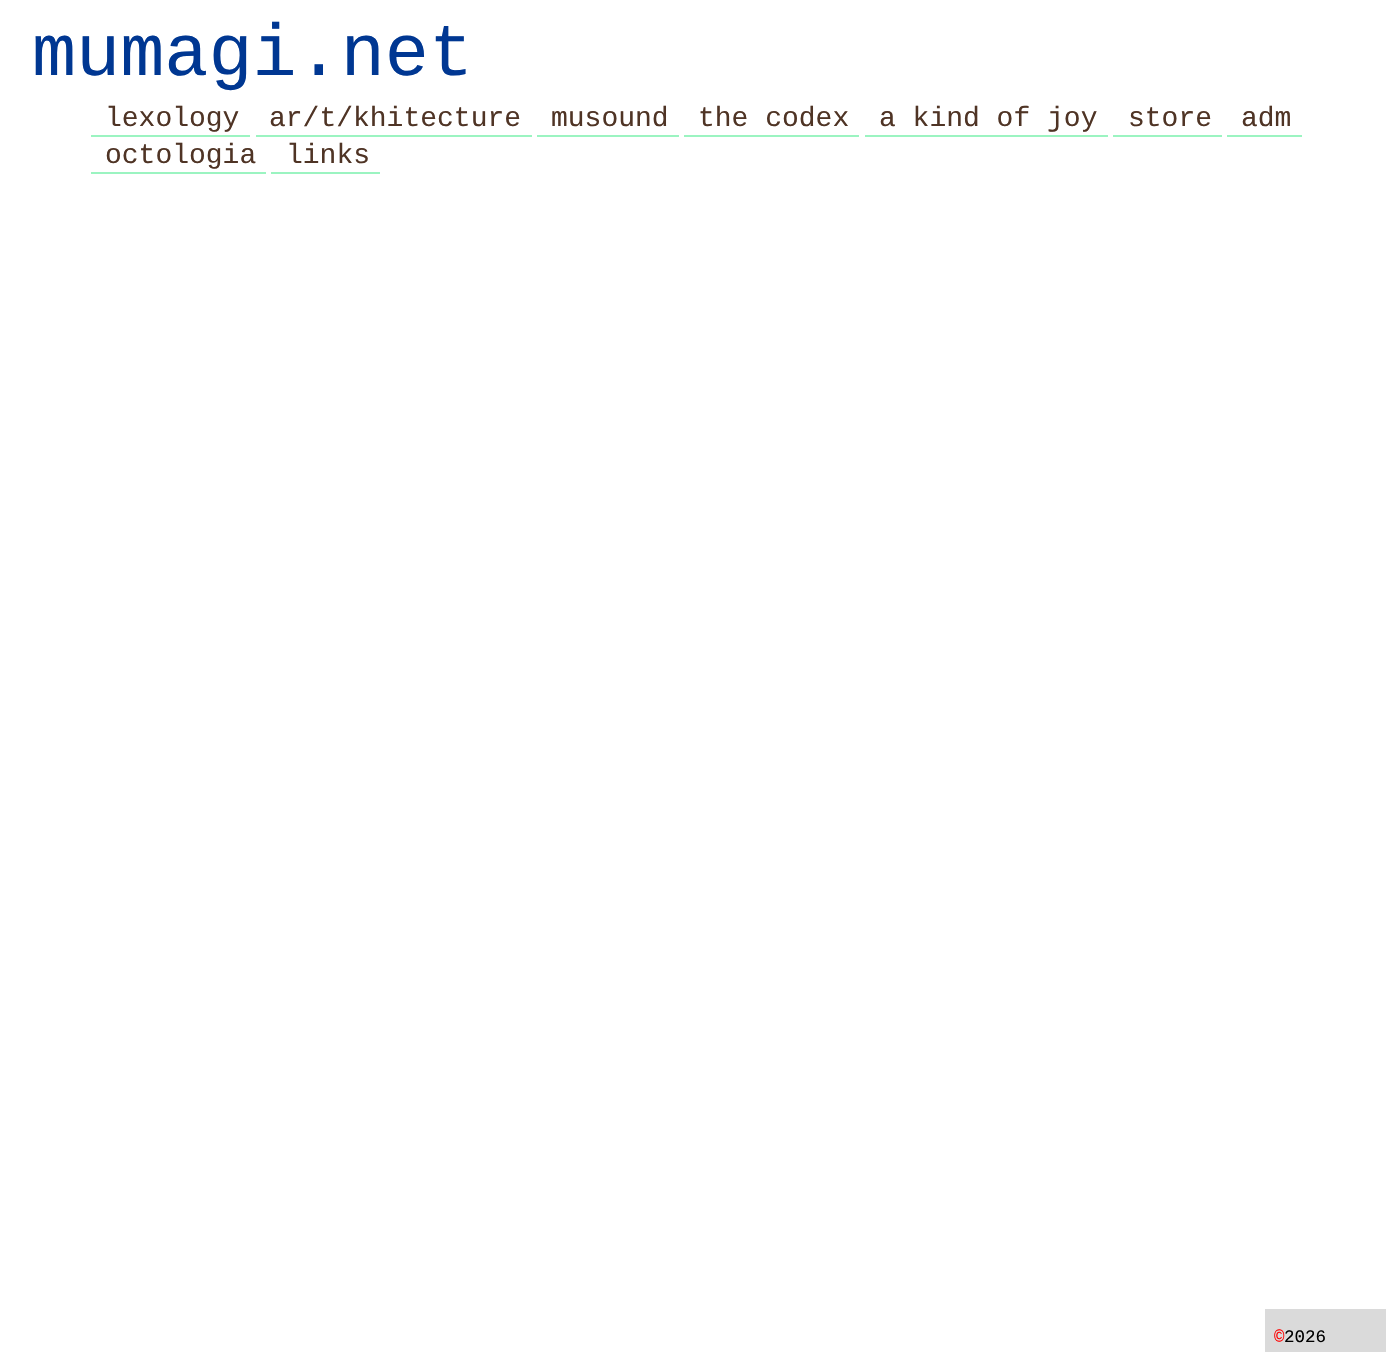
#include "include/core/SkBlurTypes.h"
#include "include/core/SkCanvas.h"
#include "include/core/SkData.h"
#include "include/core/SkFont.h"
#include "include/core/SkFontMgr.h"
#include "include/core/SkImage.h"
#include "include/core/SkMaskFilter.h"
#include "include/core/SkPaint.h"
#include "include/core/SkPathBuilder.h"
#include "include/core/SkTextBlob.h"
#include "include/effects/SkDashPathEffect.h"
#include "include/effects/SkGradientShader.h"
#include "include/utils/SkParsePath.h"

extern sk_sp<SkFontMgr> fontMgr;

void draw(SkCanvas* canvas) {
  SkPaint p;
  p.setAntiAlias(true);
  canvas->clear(SK_ColorWHITE);
  p.setColor(SkColorSetRGB(155, 244, 193));
  canvas->drawRect(SkRect::MakeLTRB(91, 135, 250, 137), p);
  canvas->drawRect(SkRect::MakeLTRB(256, 135, 532, 137), p);
  canvas->drawRect(SkRect::MakeLTRB(537, 135, 679, 137), p);
  canvas->drawRect(SkRect::MakeLTRB(684, 135, 859, 137), p);
  canvas->drawRect(SkRect::MakeLTRB(865, 135, 1108, 137), p);
  canvas->drawRect(SkRect::MakeLTRB(1113, 135, 1222, 137), p);
  canvas->drawRect(SkRect::MakeLTRB(1227, 135, 1302, 137), p);
  canvas->drawRect(SkRect::MakeLTRB(91, 172, 266, 174), p);
  canvas->drawRect(SkRect::MakeLTRB(271, 172, 380, 174), p);
  p.setColor(SkColorSetRGB(218, 218, 218));
  canvas->drawRect(SkRect::MakeLTRB(1265, 1309, 1386, 1352), p);
  SkFont font1(fontMgr->matchFamilyStyle("Liberation Mono", SkFontStyle::Normal()), 73.5f);
  font1.setSubpixel(true);
  p.setColor(SkColorSetRGB(0, 55, 146));
  canvas->drawString("mumagi.net", 32, 75, font1, p);
  SkFont font2(fontMgr->matchFamilyStyle("Liberation Mono", SkFontStyle::Normal()), 28);
  font2.setSubpixel(true);
  p.setColor(SkColorSetRGB(79, 52, 37));
  canvas->drawString("lexology", 105, 126, font2, p);
  canvas->drawString("ar/t/khitecture", 269, 126, font2, p);
  canvas->drawString("musound", 551, 126, font2, p);
  canvas->drawString("the codex", 698, 126, font2, p);
  canvas->drawString("a kind of joy", 879, 126, font2, p);
  canvas->drawString("store", 1128, 126, font2, p);
  canvas->drawString("adm", 1241, 126, font2, p);
  canvas->drawString("octologia", 105, 163, font2, p);
  canvas->drawString("links", 286, 163, font2, p);
  SkFont font3(fontMgr->matchFamilyStyle("Liberation Mono", SkFontStyle::Normal()), 17.5f);
  font3.setSubpixel(true);
  p.setColor(SkColorSetRGB(255, 0, 0));
  canvas->drawString("©", 1274, 1342, font3, p);
  p.setColor(SK_ColorBLACK);
  canvas->drawString("2026", 1284, 1342, font3, p);
}
